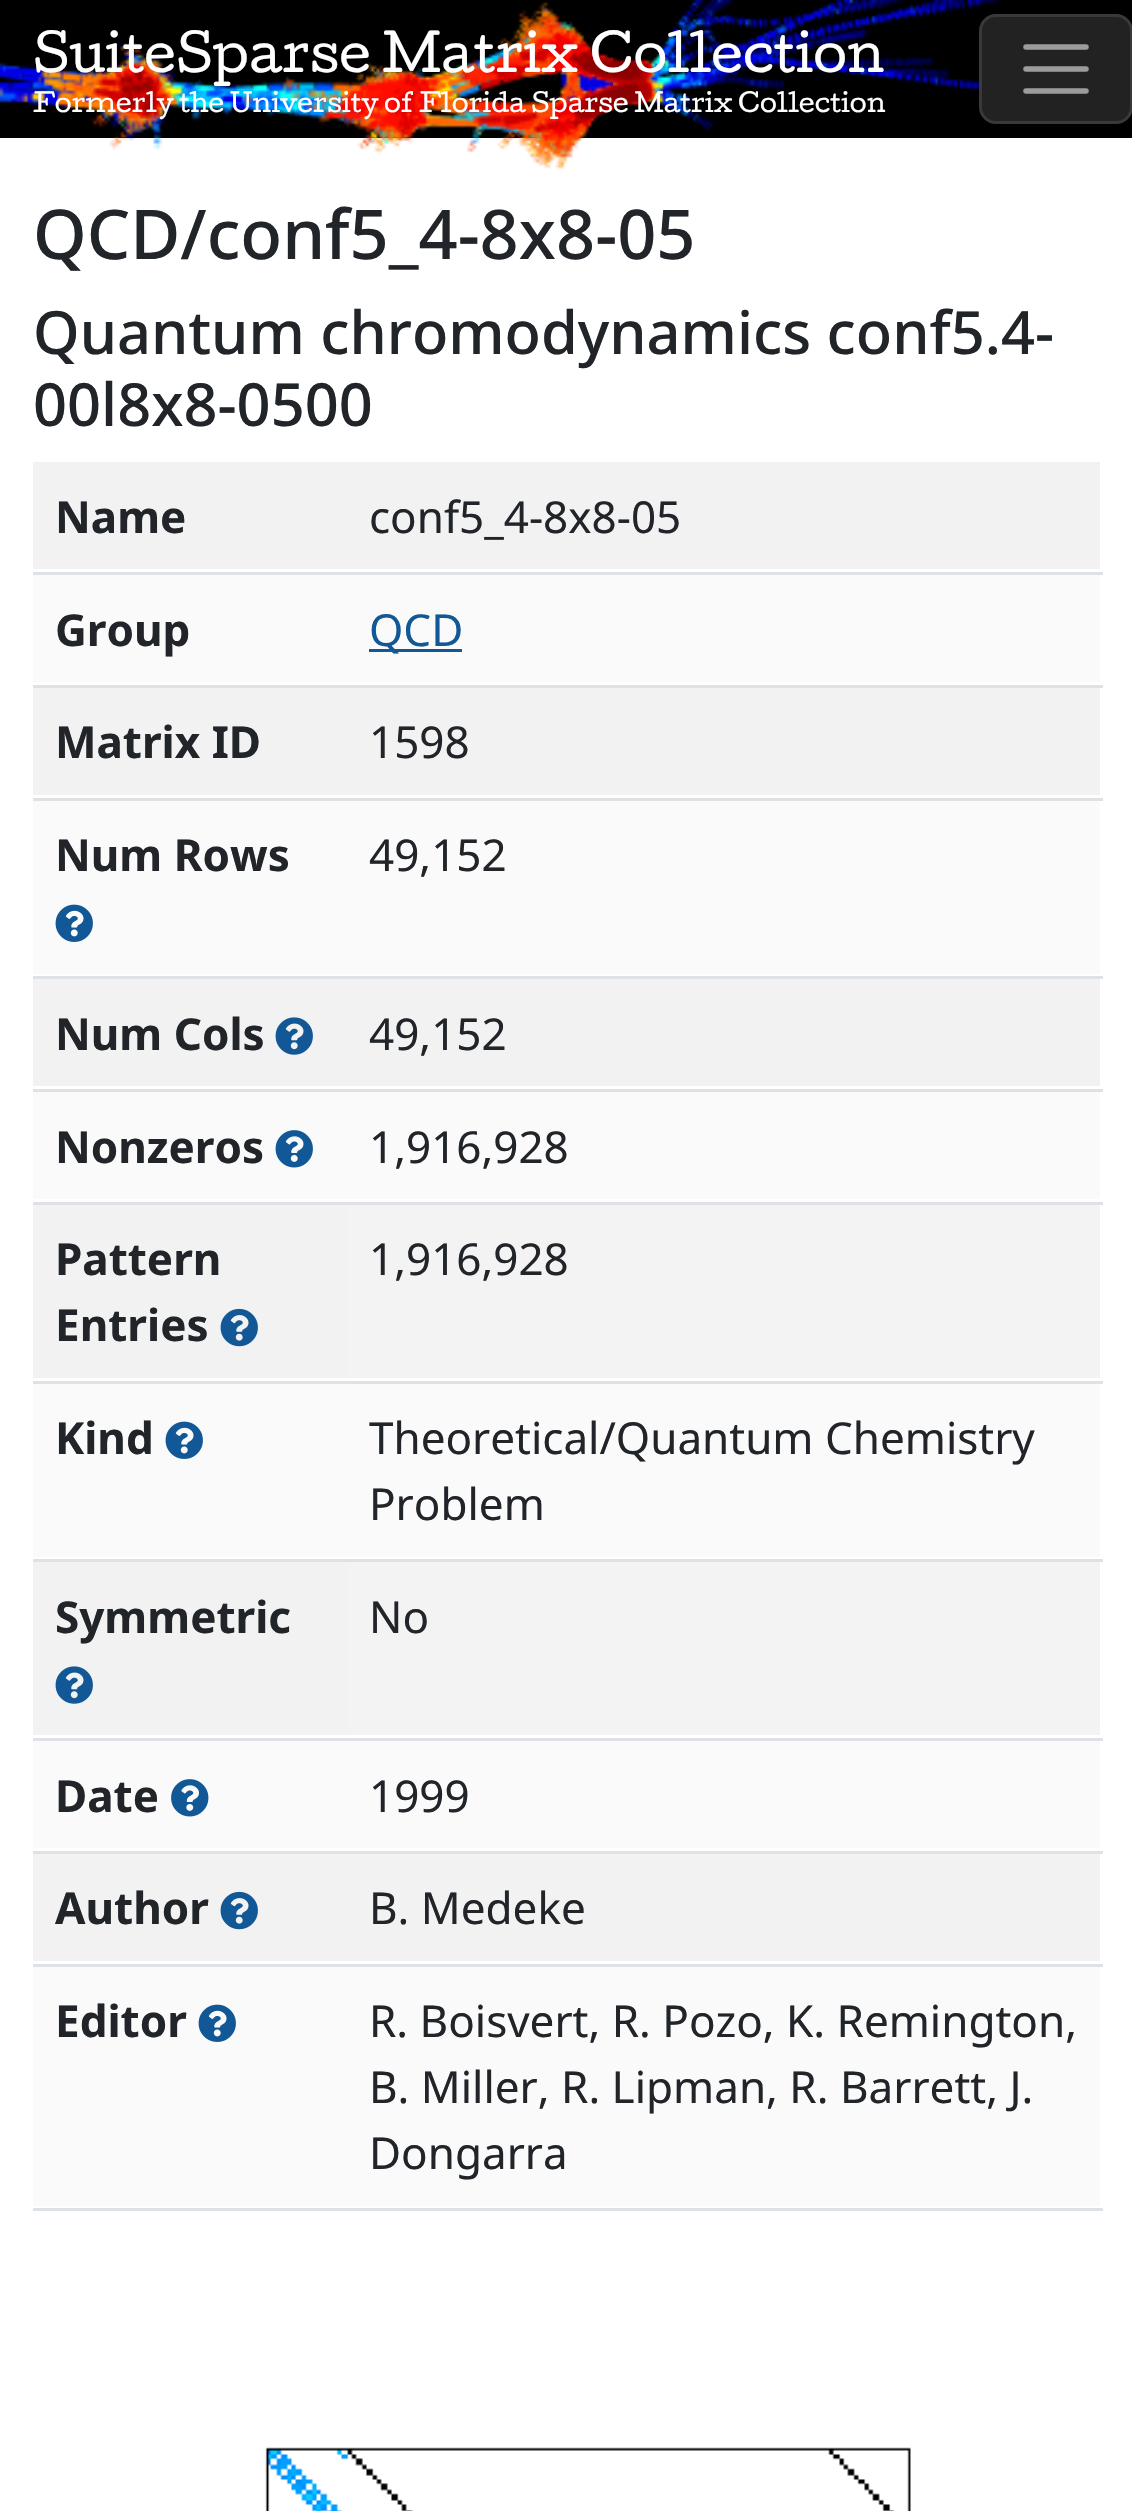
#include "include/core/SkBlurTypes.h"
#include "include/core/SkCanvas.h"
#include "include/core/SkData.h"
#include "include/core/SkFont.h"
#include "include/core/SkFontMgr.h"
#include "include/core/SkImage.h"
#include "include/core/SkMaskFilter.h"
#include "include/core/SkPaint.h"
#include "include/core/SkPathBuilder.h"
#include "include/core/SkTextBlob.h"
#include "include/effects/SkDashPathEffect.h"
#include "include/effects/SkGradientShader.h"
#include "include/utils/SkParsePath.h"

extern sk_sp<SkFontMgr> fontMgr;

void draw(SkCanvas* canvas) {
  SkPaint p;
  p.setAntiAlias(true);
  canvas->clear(SK_ColorWHITE);
  p.setColor(SK_ColorBLACK);
  canvas->drawRect(SkRect::MakeLTRB(0, 0, 1132, 138), p);
  canvas->drawImageRect(SkImages::DeferredFromEncodedData(SkData::MakeFromFileName("images/1.png")), SkRect::MakeLTRB(0, 0, 1002, 169), SkSamplingOptions());
  p.setColor(SkColorSetRGB(34, 34, 34));
  canvas->drawRoundRect(SkRect::MakeLTRB(979, 14, 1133, 124), 17, 17, p);
  p.setStyle(SkPaint::kStroke_Style);
  p.setStrokeWidth(3);
  p.setColor(SkColorSetARGB(26, 255, 255, 255));
  canvas->drawRoundRect(SkRect::MakeLTRB(980.5f, 15.5f, 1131.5f, 122.5f), 15.5f, 15.5f, p);
  p.setStrokeWidth(5.5f);
  p.setStrokeCap(SkPaint::kRound_Cap);
  p.setColor(SkColorSetRGB(156, 156, 156));
  canvas->drawPath(SkPathBuilder().moveTo(1026, 47).lineTo(1086, 47).moveTo(1026, 69).lineTo(1086, 69).moveTo(1026, 91).lineTo(1086, 91).detach(), p);
  p.setStyle(SkPaint::kFill_Style);
  p.setColor(SkColorSetRGB(242, 242, 242));
  canvas->drawRect(SkRect::MakeLTRB(33, 462, 1100, 569), p);
  p.setColor(SkColorSetRGB(222, 226, 230));
  canvas->drawRect(SkRect::MakeLTRB(33, 572, 1103, 575), p);
  p.setColor(SkColorSetRGB(250, 250, 250));
  canvas->drawRect(SkRect::MakeLTRB(33, 575, 1100, 682), p);
  p.setColor(SkColorSetRGB(222, 226, 230));
  canvas->drawRect(SkRect::MakeLTRB(33, 685, 1103, 688), p);
  p.setColor(SkColorSetRGB(18, 88, 150));
  canvas->drawRect(SkRect::MakeLTRB(369, 649, 462, 652), p);
  p.setColor(SkColorSetRGB(242, 242, 242));
  canvas->drawRect(SkRect::MakeLTRB(33, 688, 1100, 795), p);
  p.setColor(SkColorSetRGB(222, 226, 230));
  canvas->drawRect(SkRect::MakeLTRB(33, 798, 1103, 801), p);
  p.setColor(SkColorSetRGB(250, 250, 250));
  canvas->drawRect(SkRect::MakeLTRB(33, 801, 1100, 974), p);
  canvas->drawImageRect(SkImages::DeferredFromEncodedData(SkData::MakeFromFileName("images/2.png")), SkRect::MakeLTRB(55, 904, 93, 942), SkSamplingOptions());
  p.setColor(SkColorSetRGB(222, 226, 230));
  canvas->drawRect(SkRect::MakeLTRB(33, 976, 1103, 979), p);
  p.setColor(SkColorSetRGB(242, 242, 242));
  canvas->drawRect(SkRect::MakeLTRB(33, 979, 1100, 1086), p);
  canvas->drawImageRect(SkImages::DeferredFromEncodedData(SkData::MakeFromFileName("images/3.png")), SkRect::MakeLTRB(275, 1017, 313, 1055), SkSamplingOptions());
  p.setColor(SkColorSetRGB(222, 226, 230));
  canvas->drawRect(SkRect::MakeLTRB(33, 1089, 1103, 1092), p);
  p.setColor(SkColorSetRGB(250, 250, 250));
  canvas->drawRect(SkRect::MakeLTRB(33, 1092, 1100, 1199), p);
  canvas->drawImageRect(SkImages::DeferredFromEncodedData(SkData::MakeFromFileName("images/4.png")), SkRect::MakeLTRB(275, 1130, 313, 1168), SkSamplingOptions());
  p.setColor(SkColorSetRGB(222, 226, 230));
  canvas->drawRect(SkRect::MakeLTRB(33, 1202, 1103, 1205), p);
  p.setColor(SkColorSetRGB(242, 242, 242));
  canvas->drawRect(SkRect::MakeLTRB(33, 1205, 347, 1378), p);
  canvas->drawImageRect(SkImages::DeferredFromEncodedData(SkData::MakeFromFileName("images/5.png")), SkRect::MakeLTRB(220, 1308, 258, 1347), SkSamplingOptions());
  p.setColor(SkColorSetRGB(243, 243, 243));
  canvas->drawRect(SkRect::MakeLTRB(347, 1205, 1100, 1378), p);
  p.setColor(SkColorSetRGB(222, 226, 230));
  canvas->drawRect(SkRect::MakeLTRB(33, 1381, 1103, 1384), p);
  p.setColor(SkColorSetRGB(250, 250, 250));
  canvas->drawRect(SkRect::MakeLTRB(33, 1384, 1100, 1557), p);
  canvas->drawImageRect(SkImages::DeferredFromEncodedData(SkData::MakeFromFileName("images/2.png")), SkRect::MakeLTRB(165, 1421, 203, 1459), SkSamplingOptions());
  p.setColor(SkColorSetRGB(222, 226, 230));
  canvas->drawRect(SkRect::MakeLTRB(33, 1559, 1103, 1562), p);
  p.setColor(SkColorSetRGB(242, 242, 242));
  canvas->drawRect(SkRect::MakeLTRB(33, 1562, 347, 1735), p);
  canvas->drawImageRect(SkImages::DeferredFromEncodedData(SkData::MakeFromFileName("images/3.png")), SkRect::MakeLTRB(55, 1666, 93, 1704), SkSamplingOptions());
  p.setColor(SkColorSetRGB(243, 243, 243));
  canvas->drawRect(SkRect::MakeLTRB(347, 1562, 1100, 1735), p);
  p.setColor(SkColorSetRGB(222, 226, 230));
  canvas->drawRect(SkRect::MakeLTRB(33, 1738, 1103, 1741), p);
  p.setColor(SkColorSetRGB(250, 250, 250));
  canvas->drawRect(SkRect::MakeLTRB(33, 1741, 1100, 1848), p);
  canvas->drawImageRect(SkImages::DeferredFromEncodedData(SkData::MakeFromFileName("images/6.png")), SkRect::MakeLTRB(171, 1779, 209, 1817), SkSamplingOptions());
  p.setColor(SkColorSetRGB(222, 226, 230));
  canvas->drawRect(SkRect::MakeLTRB(33, 1851, 1103, 1854), p);
  p.setColor(SkColorSetRGB(242, 242, 242));
  canvas->drawRect(SkRect::MakeLTRB(33, 1854, 1100, 1961), p);
  canvas->drawImageRect(SkImages::DeferredFromEncodedData(SkData::MakeFromFileName("images/5.png")), SkRect::MakeLTRB(220, 1891, 258, 1930), SkSamplingOptions());
  p.setColor(SkColorSetRGB(222, 226, 230));
  canvas->drawRect(SkRect::MakeLTRB(33, 1964, 1103, 1967), p);
  p.setColor(SkColorSetRGB(250, 250, 250));
  canvas->drawRect(SkRect::MakeLTRB(33, 1967, 1100, 2206), p);
  canvas->drawImageRect(SkImages::DeferredFromEncodedData(SkData::MakeFromFileName("images/2.png")), SkRect::MakeLTRB(198, 2004, 236, 2042), SkSamplingOptions());
  p.setColor(SkColorSetRGB(222, 226, 230));
  canvas->drawRect(SkRect::MakeLTRB(33, 2208, 1103, 2211), p);
  canvas->drawImageRect(SkImages::DeferredFromEncodedData(SkData::MakeFromFileName("images/7.png")), SkRect::MakeLTRB(265, 2447, 911, 2511), SkSamplingOptions());
  SkFont font1(fontMgr->matchFamilyStyle("Cutive", SkFontStyle::Normal()), 49.5f);
  font1.setSubpixel(true);
  p.setColor(SK_ColorWHITE);
  canvas->drawString("SuiteSparse Matrix Collection", 33, 72, font1, p);
  SkFont font2(fontMgr->matchFamilyStyle("Cutive", SkFontStyle::Normal()), 24.75f);
  font2.setSubpixel(true);
  canvas->drawString("Formerly the University of Florida Sparse Matrix Collection", 33, 112, font2, p);
  SkFont font3(fontMgr->matchFamilyStyle("Noto Sans", SkFontStyle(500, SkFontStyle::kNormal_Width, SkFontStyle::kUpright_Slant)), 68.5f);
  font3.setSubpixel(true);
  p.setColor(SkColorSetRGB(33, 37, 41));
  canvas->drawString("QCD/conf5_4-8x8-05", 33, 259, font3, p);
  SkFont font4(fontMgr->matchFamilyStyle("Noto Sans", SkFontStyle(500, SkFontStyle::kNormal_Width, SkFontStyle::kUpright_Slant)), 59.5f);
  font4.setSubpixel(true);
  canvas->drawString("Quantum chromodynamics conf5.4-", 33, 354, font4, p);
  canvas->drawString("00l8x8-0500", 33, 426, font4, p);
  SkFont font5(fontMgr->matchFamilyStyle("Noto Sans", SkFontStyle::Bold()), 44);
  font5.setSubpixel(true);
  canvas->drawString("Name", 55, 533, font5, p);
  SkFont font6(fontMgr->matchFamilyStyle("Noto Sans", SkFontStyle::Normal()), 44);
  font6.setSubpixel(true);
  canvas->drawString("conf5_4-8x8-05", 369, 533, font6, p);
  canvas->drawString("Group", 55, 646, font5, p);
  p.setColor(SkColorSetRGB(18, 88, 150));
  canvas->drawString("QCD", 369, 646, font6, p);
  p.setColor(SkColorSetRGB(33, 37, 41));
  canvas->drawString("Matrix ID", 55, 758, font5, p);
  canvas->drawString("1598", 369, 758, font6, p);
  canvas->drawString("Num Rows", 55, 871, font5, p);
  canvas->drawString("49,152", 369, 871, font6, p);
  canvas->drawString("Num Cols", 55, 1050, font5, p);
  canvas->drawString("49,152", 369, 1050, font6, p);
  canvas->drawString("Nonzeros", 55, 1163, font5, p);
  canvas->drawString("1,916,928", 369, 1163, font6, p);
  canvas->drawString("Pattern", 55, 1275, font5, p);
  canvas->drawString("Entries", 55, 1341, font5, p);
  canvas->drawString("1,916,928", 369, 1275, font6, p);
  canvas->drawString("Kind", 55, 1454, font5, p);
  canvas->drawString("Theoretical/Quantum Chemistry", 369, 1454, font6, p);
  canvas->drawString("Problem", 369, 1520, font6, p);
  canvas->drawString("Symmetric", 55, 1633, font5, p);
  canvas->drawString("No", 369, 1633, font6, p);
  canvas->drawString("Date", 55, 1812, font5, p);
  canvas->drawString("1999", 369, 1812, font6, p);
  canvas->drawString("Author", 55, 1924, font5, p);
  canvas->drawString("B. Medeke", 369, 1924, font6, p);
  canvas->drawString("Editor", 55, 2037, font5, p);
  canvas->drawString("R. Boisvert, R. Pozo, K. Remington,", 369, 2037, font6, p);
  canvas->drawString("B. Miller, R. Lipman, R. Barrett, J.", 369, 2103, font6, p);
  canvas->drawString("Dongarra", 369, 2169, font6, p);
}
